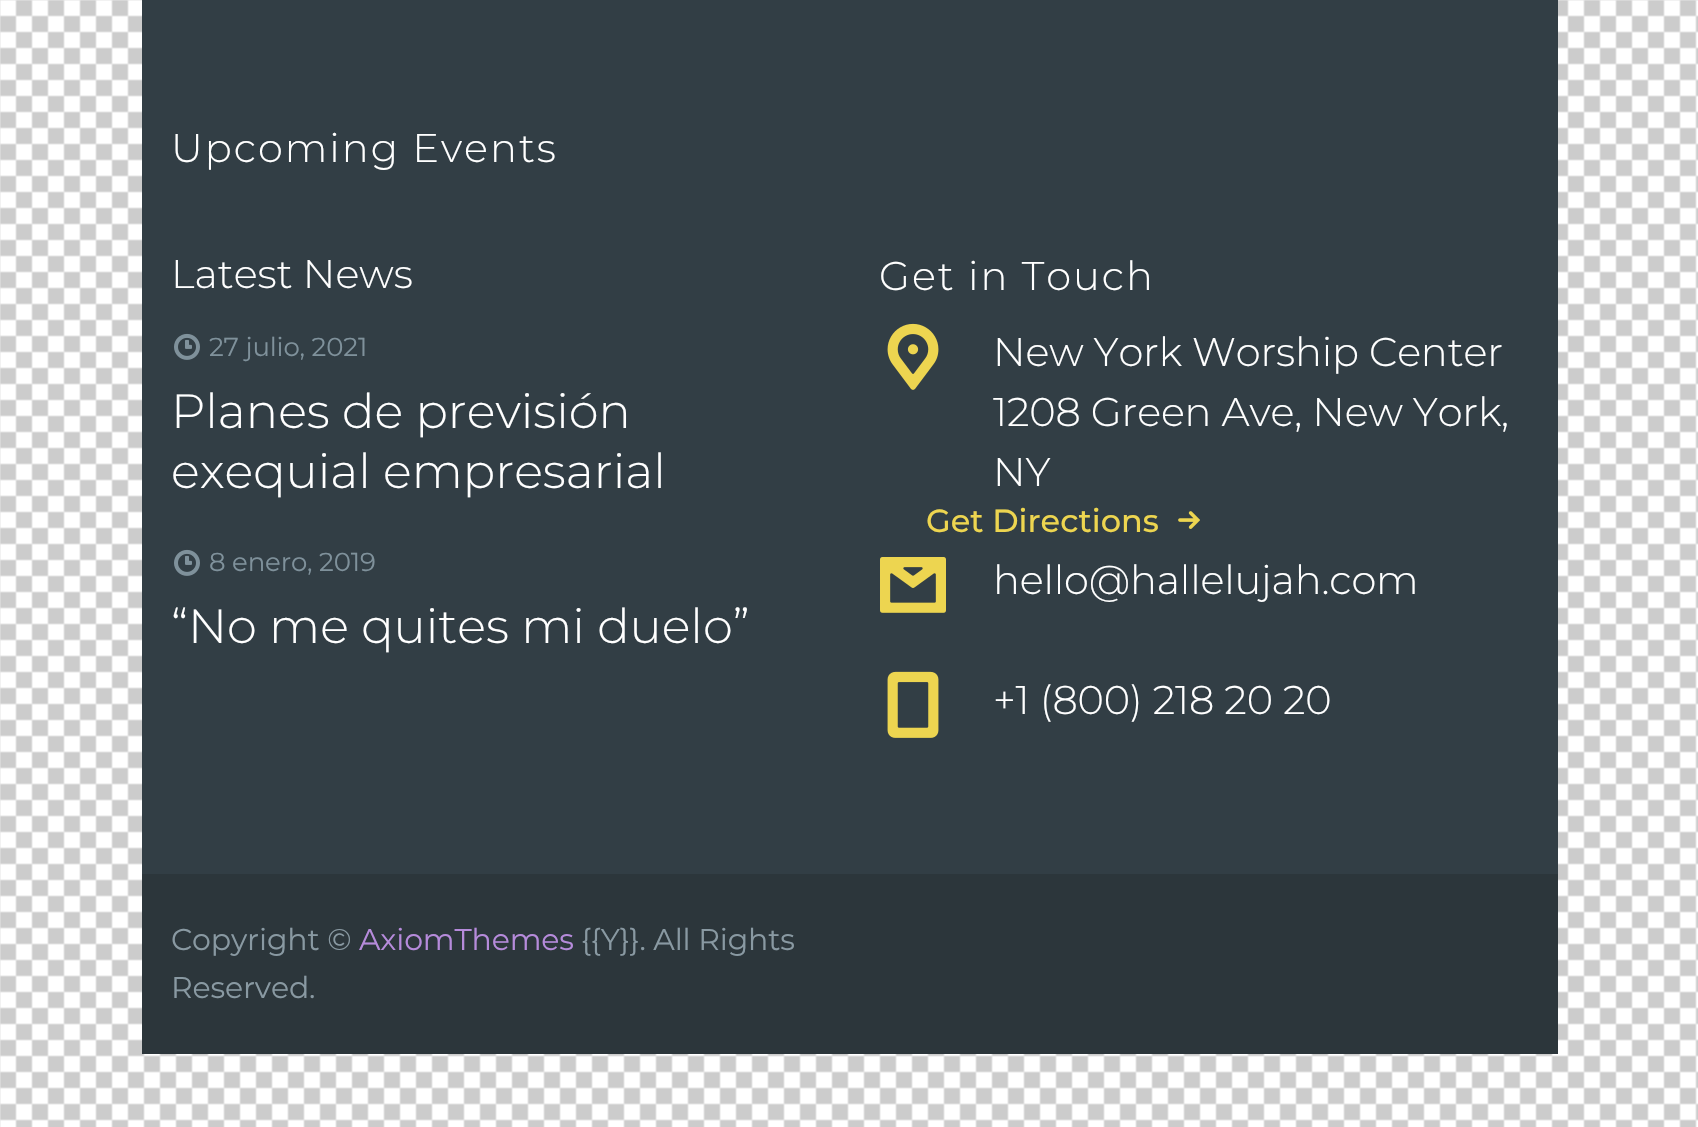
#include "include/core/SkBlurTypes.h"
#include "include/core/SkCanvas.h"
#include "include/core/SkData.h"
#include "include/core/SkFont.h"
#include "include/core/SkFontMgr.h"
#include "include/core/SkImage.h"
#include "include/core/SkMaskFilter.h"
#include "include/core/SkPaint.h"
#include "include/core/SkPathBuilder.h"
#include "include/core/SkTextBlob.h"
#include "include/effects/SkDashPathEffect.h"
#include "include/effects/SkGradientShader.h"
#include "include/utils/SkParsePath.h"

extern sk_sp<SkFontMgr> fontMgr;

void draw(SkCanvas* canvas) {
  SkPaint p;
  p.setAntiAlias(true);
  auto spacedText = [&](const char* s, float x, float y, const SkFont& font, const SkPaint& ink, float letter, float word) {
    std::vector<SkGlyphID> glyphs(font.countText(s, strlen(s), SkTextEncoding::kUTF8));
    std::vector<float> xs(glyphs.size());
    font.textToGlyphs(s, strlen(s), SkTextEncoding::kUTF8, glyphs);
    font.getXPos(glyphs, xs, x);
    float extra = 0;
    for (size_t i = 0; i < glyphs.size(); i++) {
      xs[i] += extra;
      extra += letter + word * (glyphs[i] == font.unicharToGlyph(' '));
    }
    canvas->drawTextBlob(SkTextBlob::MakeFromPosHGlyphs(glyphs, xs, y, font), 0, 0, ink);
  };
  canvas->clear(SK_ColorWHITE);
  canvas->drawImageRect(SkImages::DeferredFromEncodedData(SkData::MakeFromFileName("images/1.png")), SkRect::MakeLTRB(0, 0, 1698, 1127), SkSamplingOptions());
  p.setColor(SkColorSetRGB(50, 62, 69));
  canvas->drawRect(SkRect::MakeLTRB(142, 0, 1558, 874), p);
  canvas->drawImageRect(SkImages::DeferredFromEncodedData(SkData::MakeFromFileName("images/2.png")), SkRect::MakeLTRB(174, 333, 200, 360), SkSamplingOptions());
  canvas->drawImageRect(SkImages::DeferredFromEncodedData(SkData::MakeFromFileName("images/2.png")), SkRect::MakeLTRB(174, 549, 200, 576), SkSamplingOptions());
  canvas->drawImageRect(SkImages::DeferredFromEncodedData(SkData::MakeFromFileName("images/3.png")), SkRect::MakeLTRB(887, 323, 939, 390), SkSamplingOptions());
  canvas->drawImageRect(SkImages::DeferredFromEncodedData(SkData::MakeFromFileName("images/4.png")), SkRect::MakeLTRB(1178, 511, 1200, 529), SkSamplingOptions());
  canvas->drawImageRect(SkImages::DeferredFromEncodedData(SkData::MakeFromFileName("images/5.png")), SkRect::MakeLTRB(880, 557, 946, 613), SkSamplingOptions());
  canvas->drawImageRect(SkImages::DeferredFromEncodedData(SkData::MakeFromFileName("images/6.png")), SkRect::MakeLTRB(887, 671, 939, 738), SkSamplingOptions());
  p.setColor(SkColorSetRGB(44, 54, 59));
  canvas->drawRect(SkRect::MakeLTRB(142, 874, 1558, 1054), p);
  SkFont font1(fontMgr->matchFamilyStyle("Montserrat", SkFontStyle(300, SkFontStyle::kNormal_Width, SkFontStyle::kUpright_Slant)), 40);
  font1.setSubpixel(true);
  p.setColor(SK_ColorWHITE);
  spacedText("Upcoming Events", 171, 162, font1, p, 2, 0);
  canvas->drawString("Latest News", 171, 288, font1, p);
  SkFont font2(fontMgr->matchFamilyStyle("Montserrat", SkFontStyle::Normal()), 26);
  font2.setSubpixel(true);
  p.setColor(SkColorSetRGB(127, 145, 155));
  spacedText("27 julio, 2021", 209, 356, font2, p, -0.15f, 0);
  SkFont font3(fontMgr->matchFamilyStyle("Montserrat", SkFontStyle(300, SkFontStyle::kNormal_Width, SkFontStyle::kUpright_Slant)), 48);
  font3.setSubpixel(true);
  p.setColor(SK_ColorWHITE);
  canvas->drawString("Planes de previsión", 171, 428, font3, p);
  canvas->drawString("exequial empresarial", 171, 488, font3, p);
  p.setColor(SkColorSetRGB(127, 145, 155));
  spacedText("8 enero, 2019", 209, 571, font2, p, -0.15f, 0);
  p.setColor(SK_ColorWHITE);
  canvas->drawString("“No me quites mi duelo”", 171, 643, font3, p);
  spacedText("Get in Touch", 879, 290, font1, p, 2, 0);
  spacedText("New York Worship Center", 993, 366, font1, p, -0.15f, 0);
  spacedText("1208 Green Ave, New York,", 993, 426, font1, p, -0.15f, 0);
  spacedText("NY", 993, 486, font1, p, -0.15f, 0);
  SkFont font4(fontMgr->matchFamilyStyle("Montserrat", SkFontStyle(500, SkFontStyle::kNormal_Width, SkFontStyle::kUpright_Slant)), 32);
  font4.setSubpixel(true);
  p.setColor(SkColorSetRGB(237, 213, 80));
  canvas->drawString("Get Directions", 926, 532, font4, p);
  p.setColor(SK_ColorWHITE);
  spacedText("hello@hallelujah.com", 993, 594, font1, p, -0.15f, 0);
  spacedText("+1 (800) 218 20 20", 993, 714, font1, p, -0.15f, 0);
  SkFont font5(fontMgr->matchFamilyStyle("Montserrat", SkFontStyle::Normal()), 30);
  font5.setSubpixel(true);
  p.setColor(SkColorSetRGB(137, 153, 162));
  spacedText("Copyright ©", 171, 950, font5, p, -0.15f, 0);
  p.setColor(SkColorSetRGB(182, 139, 219));
  spacedText("AxiomThemes", 359, 950, font5, p, -0.15f, 0);
  p.setColor(SkColorSetRGB(137, 153, 162));
  spacedText("{{Y}}. All Rights", 581, 950, font5, p, -0.15f, 0);
  spacedText("Reserved.", 171, 998, font5, p, -0.15f, 0);
}
